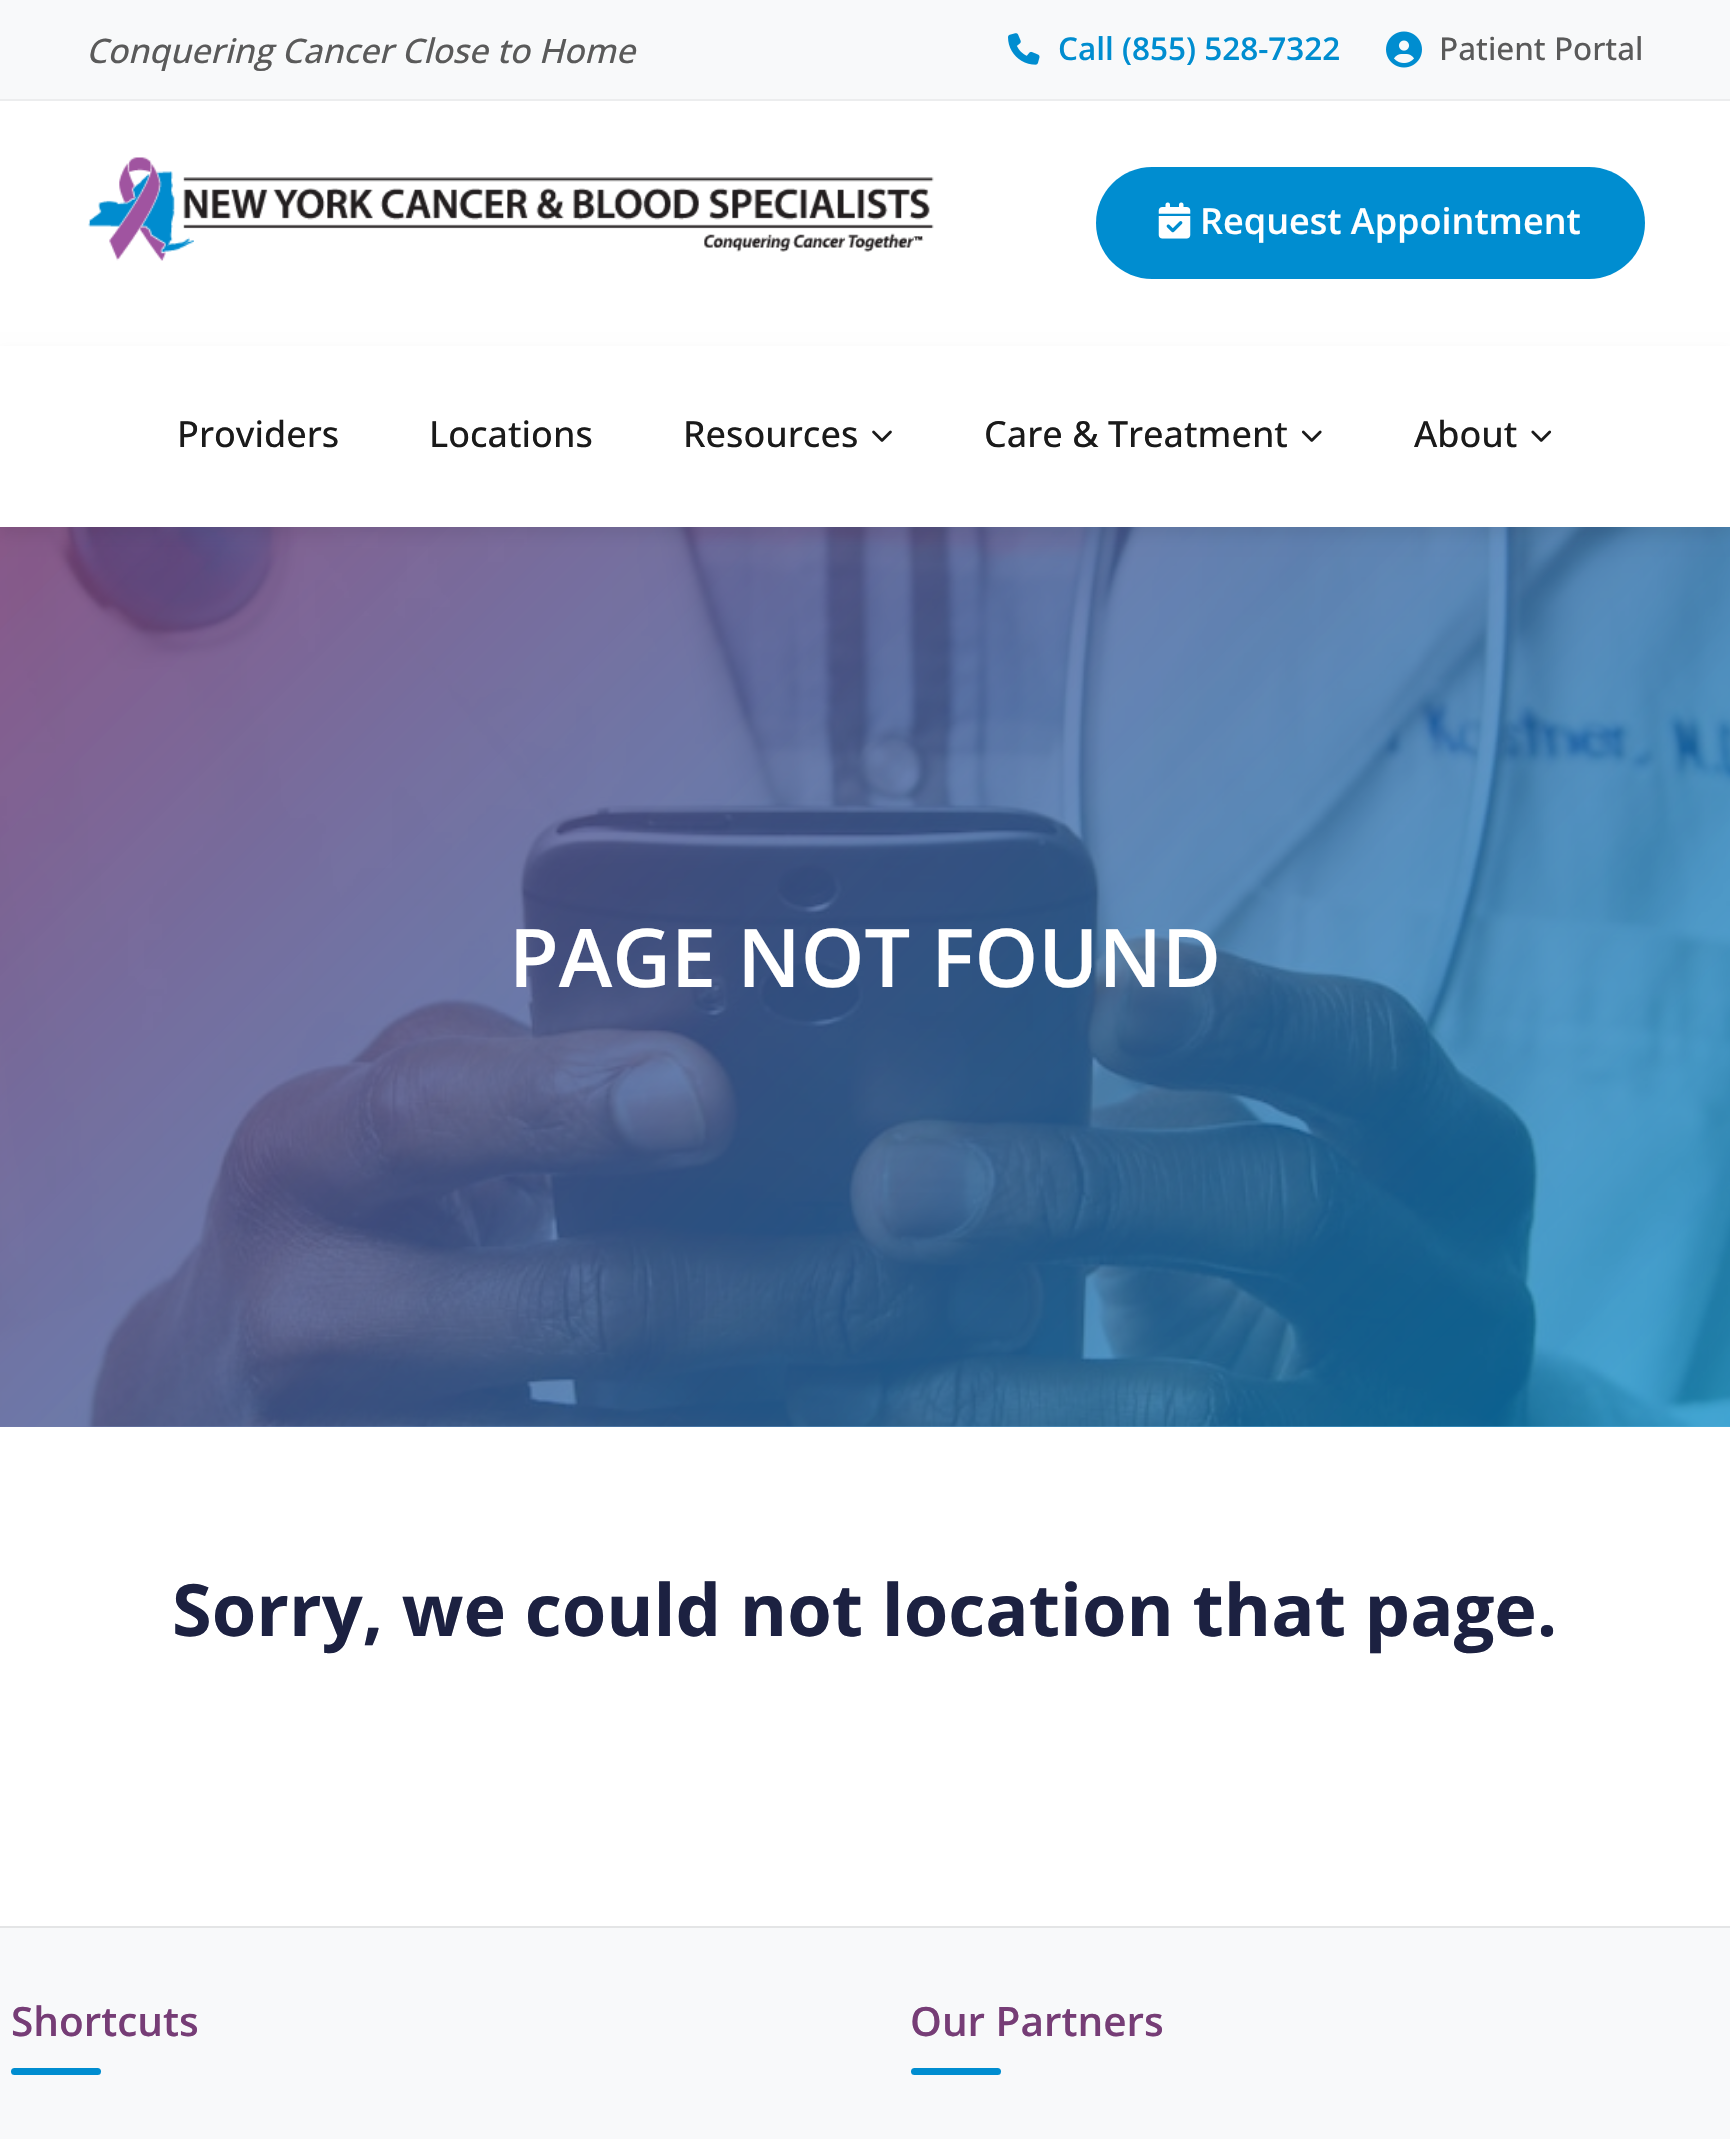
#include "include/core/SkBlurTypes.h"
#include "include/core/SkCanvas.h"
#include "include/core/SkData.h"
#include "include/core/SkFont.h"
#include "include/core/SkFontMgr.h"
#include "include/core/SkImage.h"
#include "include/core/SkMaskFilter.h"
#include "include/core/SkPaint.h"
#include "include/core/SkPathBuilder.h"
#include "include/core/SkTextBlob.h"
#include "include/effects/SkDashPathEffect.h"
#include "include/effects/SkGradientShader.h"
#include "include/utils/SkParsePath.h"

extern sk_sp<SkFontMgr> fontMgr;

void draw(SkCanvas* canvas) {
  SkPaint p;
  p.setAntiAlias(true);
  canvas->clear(SK_ColorWHITE);
  p.setColor(SkColorSetRGB(248, 249, 250));
  canvas->drawRect(SkRect::MakeLTRB(0, 0, 1730, 99), p);
  p.setColor(SkColorSetRGB(236, 237, 238));
  canvas->drawRect(SkRect::MakeLTRB(0, 99, 1730, 101), p);
  canvas->drawImageRect(SkImages::DeferredFromEncodedData(SkData::MakeFromFileName("images/1.png")), SkRect::MakeLTRB(1008, 33, 1040, 65), SkSamplingOptions());
  canvas->drawImageRect(SkImages::DeferredFromEncodedData(SkData::MakeFromFileName("images/2.png")), SkRect::MakeLTRB(1386, 31, 1422, 68), SkSamplingOptions());
  canvas->drawImageRect(SkImages::DeferredFromEncodedData(SkData::MakeFromFileName("images/3.png")), SkRect::MakeLTRB(88, 157, 934, 261), SkSamplingOptions());
  p.setColor(SkColorSetRGB(0, 141, 208));
  canvas->drawRoundRect(SkRect::MakeLTRB(1096, 167, 1645, 279), 56, 56, p);
  canvas->drawImageRect(SkImages::DeferredFromEncodedData(SkData::MakeFromFileName("images/4.png")), SkRect::MakeLTRB(1158, 202, 1191, 239), SkSamplingOptions());
  canvas->drawImageRect(SkImages::DeferredFromEncodedData(SkData::MakeFromFileName("images/8.png")), SkRect::MakeLTRB(0, 527, 1730, 1427), SkSamplingOptions());
  {
    const SkColor colors[] = {SkColorSetARGB(217, 118, 61, 118), SkColorSetARGB(179, 0, 141, 208)};
    const float stops[] = {0, 1};
    const SkPoint ends[] = {{208, 319}, {1523, 1634}};
    p.setShader(SkGradientShader::MakeLinear(ends, colors, stops, 2, SkTileMode::kClamp));
    p.setAlpha(255);
  }
  canvas->drawRect(SkRect::MakeLTRB(0, 527, 1730, 1427), p);
  p.setShader(nullptr);
  p.setColor(SkColorSetARGB(18, 0, 0, 0));
  p.setMaskFilter(SkMaskFilter::MakeBlur(kNormal_SkBlurStyle, 7));
  canvas->drawRect(SkRect::MakeLTRB(0, 353, 1730, 536), p);
  p.setMaskFilter(nullptr);
  p.setColor(SK_ColorWHITE);
  canvas->drawRect(SkRect::MakeLTRB(0, 346, 1730, 527), p);
  canvas->drawImageRect(SkImages::DeferredFromEncodedData(SkData::MakeFromFileName("images/5.png")), SkRect::MakeLTRB(872, 430, 892, 442), SkSamplingOptions());
  canvas->drawImageRect(SkImages::DeferredFromEncodedData(SkData::MakeFromFileName("images/6.png")), SkRect::MakeLTRB(1301, 430, 1322, 442), SkSamplingOptions());
  canvas->drawImageRect(SkImages::DeferredFromEncodedData(SkData::MakeFromFileName("images/7.png")), SkRect::MakeLTRB(1531, 430, 1552, 442), SkSamplingOptions());
  p.setColor(SkColorSetRGB(248, 249, 250));
  canvas->drawRect(SkRect::MakeLTRB(0, 1928, 1730, 2139), p);
  p.setColor(SkColorSetRGB(228, 229, 230));
  canvas->drawRect(SkRect::MakeLTRB(0, 1926, 1730, 1928), p);
  p.setColor(SkColorSetRGB(0, 141, 208));
  canvas->drawRoundRect(SkRect::MakeLTRB(11, 2068, 101, 2075), 3.5f, 3.5f, p);
  canvas->drawRoundRect(SkRect::MakeLTRB(911, 2068, 1001, 2075), 3.5f, 3.5f, p);
  SkFont font1(fontMgr->matchFamilyStyle("Open Sans", SkFontStyle(500, SkFontStyle::kNormal_Width, SkFontStyle::kItalic_Slant)), 33.75f);
  font1.setSubpixel(true);
  p.setColor(SkColorSetRGB(90, 90, 90));
  canvas->drawString("Conquering Cancer Close to Home", 86, 63, font1, p);
  SkFont font2(fontMgr->matchFamilyStyle("Open Sans", SkFontStyle(600, SkFontStyle::kNormal_Width, SkFontStyle::kUpright_Slant)), 31.5f);
  font2.setSubpixel(true);
  p.setColor(SkColorSetRGB(0, 141, 208));
  canvas->drawString("Call (855) 528-7322", 1058, 60, font2, p);
  SkFont font3(fontMgr->matchFamilyStyle("Open Sans", SkFontStyle(500, SkFontStyle::kNormal_Width, SkFontStyle::kUpright_Slant)), 31.5f);
  font3.setSubpixel(true);
  p.setColor(SkColorSetRGB(90, 90, 90));
  canvas->drawString("Patient Portal", 1439, 60, font3, p);
  SkFont font4(fontMgr->matchFamilyStyle("Open Sans", SkFontStyle(600, SkFontStyle::kNormal_Width, SkFontStyle::kUpright_Slant)), 36);
  font4.setSubpixel(true);
  p.setColor(SK_ColorWHITE);
  canvas->drawString("Request Appointment", 1200, 234, font4, p);
  SkFont font5(fontMgr->matchFamilyStyle("Open Sans", SkFontStyle(500, SkFontStyle::kNormal_Width, SkFontStyle::kUpright_Slant)), 36);
  font5.setSubpixel(true);
  p.setColor(SkColorSetRGB(26, 26, 26));
  canvas->drawString("Providers", 177, 447, font5, p);
  canvas->drawString("Locations", 429, 447, font5, p);
  canvas->drawString("Resources", 683, 447, font5, p);
  canvas->drawString("Care & Treatment", 984, 447, font5, p);
  canvas->drawString("About", 1414, 447, font5, p);
  SkFont font6(fontMgr->matchFamilyStyle("Open Sans", SkFontStyle(600, SkFontStyle::kNormal_Width, SkFontStyle::kUpright_Slant)), 81);
  font6.setSubpixel(true);
  p.setColor(SK_ColorWHITE);
  canvas->drawString("PAGE NOT FOUND", 509, 987, font6, p);
  SkFont font7(fontMgr->matchFamilyStyle("Open Sans", SkFontStyle::Bold()), 72);
  font7.setSubpixel(true);
  p.setColor(SkColorSetRGB(28, 33, 65));
  canvas->drawString("Sorry, we could not location that page.", 172, 1636, font7, p);
  SkFont font8(fontMgr->matchFamilyStyle("Open Sans", SkFontStyle(600, SkFontStyle::kNormal_Width, SkFontStyle::kUpright_Slant)), 40.5f);
  font8.setSubpixel(true);
  p.setColor(SkColorSetRGB(118, 61, 118));
  canvas->drawString("Shortcuts", 11, 2036, font8, p);
  canvas->drawString("Our Partners", 910, 2036, font8, p);
}
